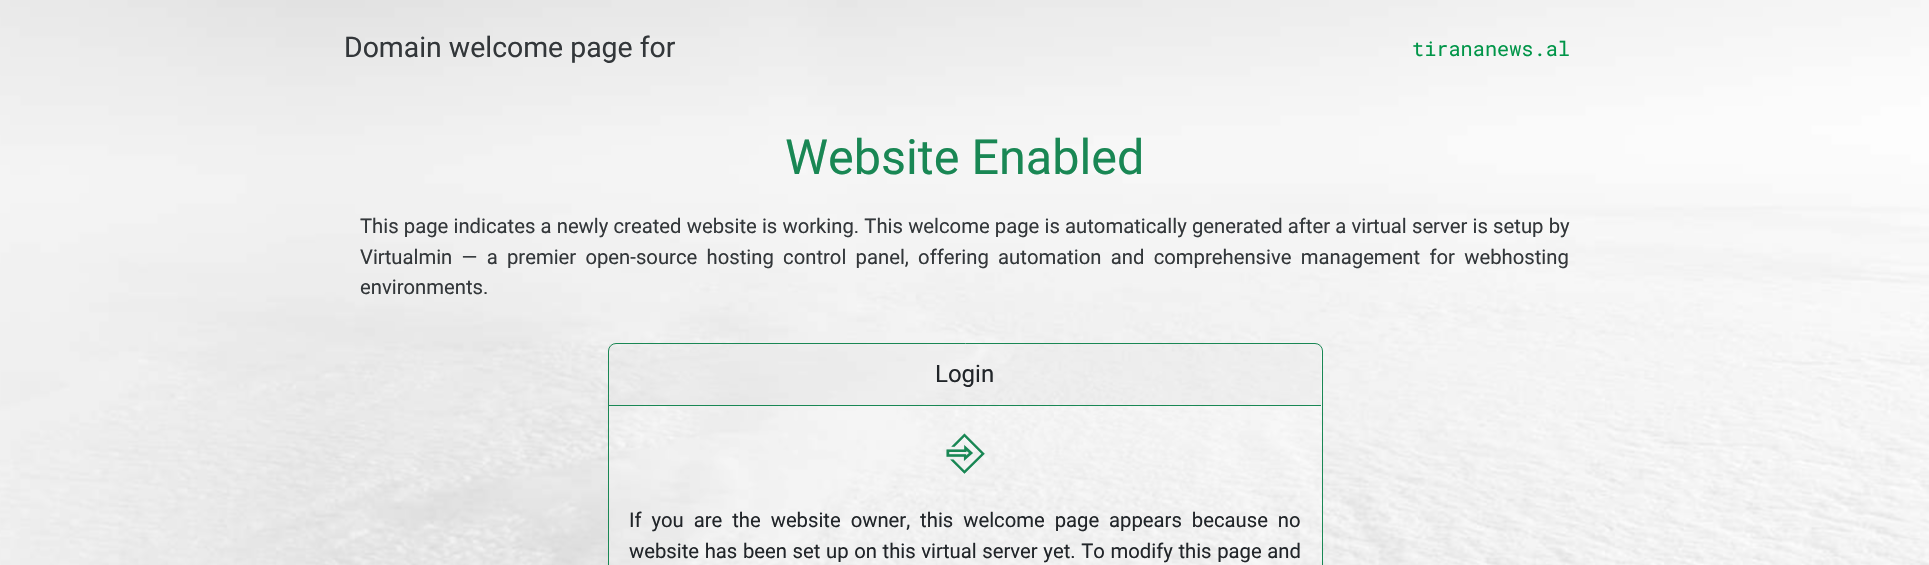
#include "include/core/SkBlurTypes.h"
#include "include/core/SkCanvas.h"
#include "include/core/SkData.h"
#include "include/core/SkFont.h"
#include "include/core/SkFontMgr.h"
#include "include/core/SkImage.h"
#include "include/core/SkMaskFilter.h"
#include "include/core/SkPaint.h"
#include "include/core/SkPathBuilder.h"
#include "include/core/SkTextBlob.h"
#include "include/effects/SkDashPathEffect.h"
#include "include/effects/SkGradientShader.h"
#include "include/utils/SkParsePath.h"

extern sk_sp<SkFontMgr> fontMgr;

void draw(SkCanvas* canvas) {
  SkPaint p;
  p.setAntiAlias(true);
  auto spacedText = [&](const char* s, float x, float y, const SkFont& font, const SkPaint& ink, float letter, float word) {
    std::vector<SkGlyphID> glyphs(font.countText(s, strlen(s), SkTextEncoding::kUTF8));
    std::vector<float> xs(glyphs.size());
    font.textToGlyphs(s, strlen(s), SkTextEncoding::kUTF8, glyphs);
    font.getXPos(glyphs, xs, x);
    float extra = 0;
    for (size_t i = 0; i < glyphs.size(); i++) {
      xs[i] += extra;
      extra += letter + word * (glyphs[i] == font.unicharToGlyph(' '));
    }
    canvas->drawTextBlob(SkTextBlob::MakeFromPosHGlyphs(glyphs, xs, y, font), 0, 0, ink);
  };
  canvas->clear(SK_ColorWHITE);
  canvas->drawImageRect(SkImages::DeferredFromEncodedData(SkData::MakeFromFileName("images/1.png")), SkRect::MakeLTRB(0, 0, 1929, 565), SkSamplingOptions());
  p.setColor(SkColorSetARGB(69, 255, 255, 255));
  canvas->drawRoundRect(SkRect::MakeLTRB(608.5f, 343.5f, 1322.5f, 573.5f), 7.5f, 7.5f, p);
  p.setStyle(SkPaint::kStroke_Style);
  p.setStrokeWidth(1);
  p.setColor(SkColorSetRGB(25, 135, 84));
  canvas->drawRoundRect(SkRect::MakeLTRB(608.5f, 343.5f, 1322.5f, 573.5f), 7.5f, 7.5f, p);
  p.setStyle(SkPaint::kFill_Style);
  p.setColor(SkColorSetARGB(8, 33, 37, 41));
  canvas->drawRect(SkRect::MakeLTRB(609, 344, 1321, 405), p);
  p.setColor(SkColorSetRGB(25, 135, 84));
  canvas->drawRect(SkRect::MakeLTRB(609, 405, 1321, 406), p);
  SkFont font1(fontMgr->matchFamilyStyle("Roboto", SkFontStyle::Normal()), 28.4f);
  font1.setSubpixel(true);
  p.setColor(SkColorSetRGB(51, 55, 58));
  canvas->drawString("Domain welcome page for", 344, 57, font1, p);
  SkFont font2(fontMgr->matchFamilyStyle("Roboto Mono", SkFontStyle::Normal()), 20.25f);
  font2.setSubpixel(true);
  p.setColor(SkColorSetRGB(0, 149, 72));
  canvas->drawString("tirananews.al", 1412, 56, font2, p);
  SkFont font3(fontMgr->matchFamilyStyle("Roboto", SkFontStyle::Normal()), 48.5f);
  font3.setSubpixel(true);
  p.setColor(SkColorSetRGB(25, 135, 84));
  canvas->drawString("Website Enabled", 785, 174, font3, p);
  SkFont font4(fontMgr->matchFamilyStyle("Roboto", SkFontStyle::Normal()), 20.25f);
  font4.setSubpixel(true);
  p.setColor(SkColorSetRGB(51, 55, 58));
  spacedText("This page indicates a newly created website is working. This welcome page is automatically generated after a virtual server is setup by", 360, 233, font4, p, 0, 0.15f);
  spacedText("Virtualmin — a premier open-source hosting control panel, offering automation and comprehensive management for webhosting", 360, 264, font4, p, 0, 4.25f);
  canvas->drawString("environments.", 360, 294, font4, p);
  SkFont font5(fontMgr->matchFamilyStyle("Roboto", SkFontStyle::Normal()), 24);
  font5.setSubpixel(true);
  p.setColor(SkColorSetRGB(33, 37, 41));
  canvas->drawString("Login", 935, 382, font5, p);
  SkFont font6(fontMgr->matchFamilyStyle("FreeSerif", SkFontStyle::Normal()), 48.5f);
  font6.setSubpixel(true);
  p.setColor(SkColorSetRGB(25, 135, 84));
  canvas->drawString("⎆", 946, 468, font6, p);
  p.setColor(SkColorSetRGB(33, 37, 41));
  spacedText("If you are the website owner, this welcome page appears because no", 629, 527, font4, p, 0, 4.9f);
  spacedText("website has been set up on this virtual server yet. To modify this page and", 629, 558, font4, p, 0, 0.6f);
}
